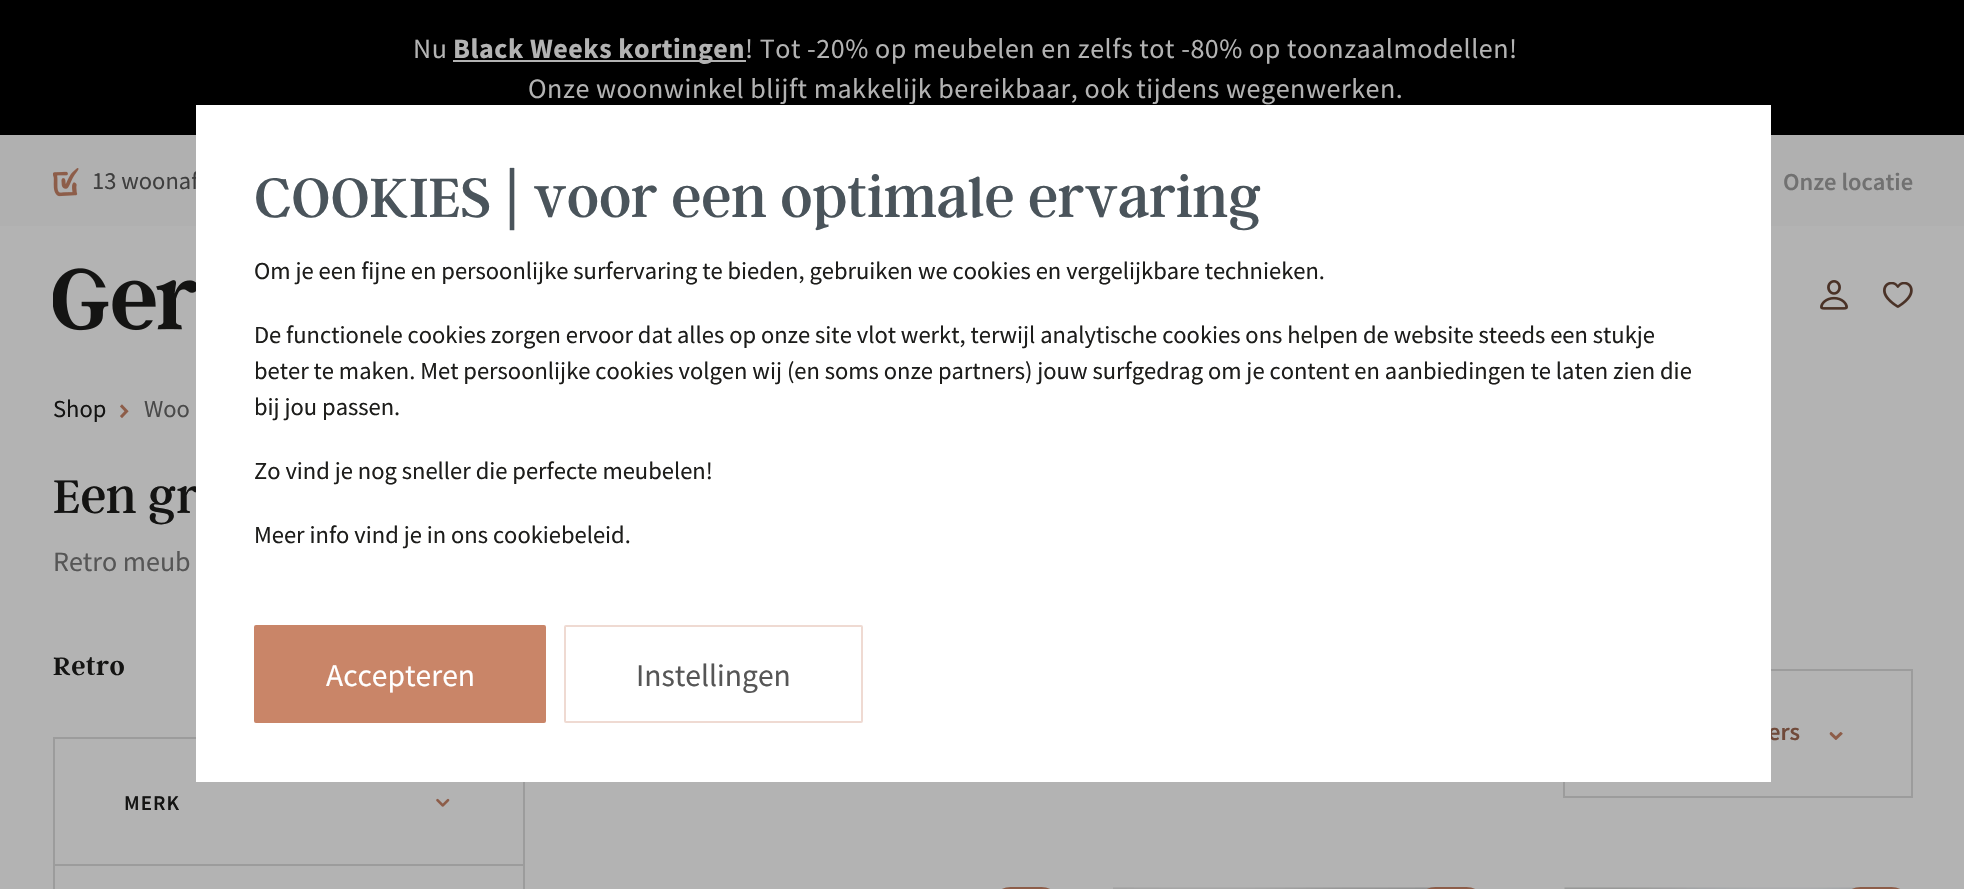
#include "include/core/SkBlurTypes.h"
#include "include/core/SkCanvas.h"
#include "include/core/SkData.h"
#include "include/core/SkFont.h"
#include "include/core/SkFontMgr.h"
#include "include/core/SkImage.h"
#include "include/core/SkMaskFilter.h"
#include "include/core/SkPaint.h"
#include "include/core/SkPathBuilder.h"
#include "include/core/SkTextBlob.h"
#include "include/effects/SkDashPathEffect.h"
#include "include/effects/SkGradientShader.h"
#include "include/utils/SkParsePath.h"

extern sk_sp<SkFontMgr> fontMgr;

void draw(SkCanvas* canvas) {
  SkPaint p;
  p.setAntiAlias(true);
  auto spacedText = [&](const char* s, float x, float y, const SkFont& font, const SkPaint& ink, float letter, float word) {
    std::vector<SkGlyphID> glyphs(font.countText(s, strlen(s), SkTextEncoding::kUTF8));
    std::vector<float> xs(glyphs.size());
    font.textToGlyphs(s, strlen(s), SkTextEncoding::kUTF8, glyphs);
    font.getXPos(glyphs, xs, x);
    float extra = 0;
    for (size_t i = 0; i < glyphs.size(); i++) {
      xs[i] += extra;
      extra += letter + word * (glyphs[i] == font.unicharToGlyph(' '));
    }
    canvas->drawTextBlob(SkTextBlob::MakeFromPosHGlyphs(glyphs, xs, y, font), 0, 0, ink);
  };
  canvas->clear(SkColorSetRGB(179, 179, 179));
  p.setColor(SK_ColorBLACK);
  canvas->drawRect(SkRect::MakeLTRB(0, 0, 1964, 135), p);
  p.setColor(SkColorSetRGB(179, 179, 179));
  canvas->drawRect(SkRect::MakeLTRB(453, 60, 746, 62), p);
  p.setColor(SkColorSetRGB(176, 176, 176));
  canvas->drawRect(SkRect::MakeLTRB(0, 135, 1964, 226), p);
  canvas->drawImageRect(SkImages::DeferredFromEncodedData(SkData::MakeFromFileName("images/1.png")), SkRect::MakeLTRB(53, 168, 79, 197), SkSamplingOptions());
  canvas->drawImageRect(SkImages::DeferredFromEncodedData(SkData::MakeFromFileName("images/2.png")), SkRect::MakeLTRB(53, 268, 196, 331), SkSamplingOptions());
  canvas->drawImageRect(SkImages::DeferredFromEncodedData(SkData::MakeFromFileName("images/3.png")), SkRect::MakeLTRB(1820, 280, 1848, 310), SkSamplingOptions());
  canvas->drawImageRect(SkImages::DeferredFromEncodedData(SkData::MakeFromFileName("images/4.png")), SkRect::MakeLTRB(1883, 282, 1913, 308), SkSamplingOptions());
  canvas->drawImageRect(SkImages::DeferredFromEncodedData(SkData::MakeFromFileName("images/5.png")), SkRect::MakeLTRB(120, 404, 129, 418), SkSamplingOptions());
  p.setStyle(SkPaint::kStroke_Style);
  p.setStrokeWidth(2);
  p.setColor(SkColorSetRGB(156, 156, 156));
  canvas->drawRect(SkRect::MakeLTRB(54, 738, 524, 865), p);
  canvas->drawImageRect(SkImages::DeferredFromEncodedData(SkData::MakeFromFileName("images/6.png")), SkRect::MakeLTRB(436, 798, 450, 807), SkSamplingOptions());
  p.setStyle(SkPaint::kFill_Style);
  canvas->drawRect(SkRect::MakeLTRB(523, 866, 525, 889), p);
  canvas->drawRect(SkRect::MakeLTRB(53, 866, 55, 889), p);
  p.setStyle(SkPaint::kStroke_Style);
  canvas->drawRect(SkRect::MakeLTRB(1564, 670, 1912, 797), p);
  canvas->drawImageRect(SkImages::DeferredFromEncodedData(SkData::MakeFromFileName("images/7.png")), SkRect::MakeLTRB(1829, 732, 1843, 740), SkSamplingOptions());
  p.setColor(SkColorSetRGB(141, 93, 73));
  canvas->drawRoundRect(SkRect::MakeLTRB(992, 888, 1060, 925), 34, 34, p);
  canvas->drawImageRect(SkImages::DeferredFromEncodedData(SkData::MakeFromFileName("images/8.png")), SkRect::MakeLTRB(1113, 887, 1465, 889), SkSamplingOptions());
  canvas->drawRoundRect(SkRect::MakeLTRB(1417, 888, 1485, 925), 34, 34, p);
  canvas->drawImageRect(SkImages::DeferredFromEncodedData(SkData::MakeFromFileName("images/9.png")), SkRect::MakeLTRB(1564, 887, 1864, 889), SkSamplingOptions());
  canvas->drawRoundRect(SkRect::MakeLTRB(1842, 888, 1910, 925), 34, 34, p);
  SkFont font1(fontMgr->matchFamilyStyle("Source Sans Pro", SkFontStyle::Normal()), 28);
  font1.setSubpixel(true);
  p.setStyle(SkPaint::kFill_Style);
  p.setColor(SkColorSetRGB(179, 179, 179));
  spacedText("Nu", 413, 58, font1, p, 0.53f, 0);
  SkFont font2(fontMgr->matchFamilyStyle("Source Sans Pro", SkFontStyle::Bold()), 28);
  font2.setSubpixel(true);
  spacedText("Black Weeks kortingen", 453, 58, font2, p, 0.53f, 0);
  spacedText("! Tot -20% op meubelen en zelfs tot -80% op toonzaalmodellen!", 745, 58, font1, p, 0.53f, 0);
  spacedText("Onze woonwinkel blijft makkelijk bereikbaar, ook tijdens wegenwerken.", 528, 98, font1, p, 0.53f, 0);
  SkFont font3(fontMgr->matchFamilyStyle("Source Sans Pro", SkFontStyle::Normal()), 24.5f);
  font3.setSubpixel(true);
  p.setColor(SkColorSetRGB(63, 63, 63));
  canvas->drawString("13 woonaf", 92, 189, font3, p);
  SkFont font4(fontMgr->matchFamilyStyle("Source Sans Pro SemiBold", SkFontStyle(600, SkFontStyle::kNormal_Width, SkFontStyle::kUpright_Slant)), 24.5f);
  font4.setSubpixel(true);
  p.setColor(SkColorSetRGB(113, 113, 113));
  canvas->drawString("Onze locatie", 1783, 190, font4, p);
  p.setColor(SkColorSetRGB(20, 20, 19));
  canvas->drawString("Shop", 53, 417, font3, p);
  p.setColor(SkColorSetRGB(74, 74, 74));
  canvas->drawString("Woo", 144, 417, font3, p);
  SkFont font5(fontMgr->matchFamilyStyle("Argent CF", SkFontStyle::Normal()), 52.5f);
  font5.setSubpixel(true);
  p.setColor(SkColorSetRGB(20, 20, 19));
  canvas->drawString("Een gr", 53, 513, font5, p);
  p.setColor(SkColorSetRGB(86, 86, 86));
  canvas->drawString("Retro meub", 53, 571, font1, p);
  SkFont font6(fontMgr->matchFamilyStyle("Argent CF", SkFontStyle(600, SkFontStyle::kNormal_Width, SkFontStyle::kUpright_Slant)), 28);
  font6.setSubpixel(true);
  p.setColor(SkColorSetRGB(20, 20, 19));
  spacedText("Retro", 53, 675, font6, p, 0.53f, 0);
  SkFont font7(fontMgr->matchFamilyStyle("Source Sans Pro SemiBold", SkFontStyle(600, SkFontStyle::kNormal_Width, SkFontStyle::kUpright_Slant)), 21);
  font7.setSubpixel(true);
  spacedText("MERK", 124, 810, font7, p, 1, 0);
  p.setColor(SkColorSetRGB(112, 74, 58));
  canvas->drawString("ers", 1768, 740, font4, p);
  p.setColor(SK_ColorWHITE);
  canvas->drawRect(SkRect::MakeLTRB(196, 105, 1771, 782), p);
  p.setStyle(SkPaint::kStroke_Style);
  p.setColor(SkColorSetRGB(239, 218, 210));
  canvas->drawRoundRect(SkRect::MakeLTRB(565, 626, 862, 722), 1, 1, p);
  SkFont font8(fontMgr->matchFamilyStyle("Source Sans Pro", SkFontStyle::Normal()), 31.5f);
  font8.setSubpixel(true);
  p.setStyle(SkPaint::kFill_Style);
  p.setColor(SkColorSetRGB(86, 86, 86));
  canvas->drawString("Instellingen", 636, 686, font8, p);
  p.setColor(SkColorSetRGB(201, 133, 104));
  canvas->drawRoundRect(SkRect::MakeLTRB(255, 626, 545, 722), 1, 1, p);
  p.setStyle(SkPaint::kStroke_Style);
  canvas->drawRoundRect(SkRect::MakeLTRB(255, 626, 545, 722), 1, 1, p);
  p.setStyle(SkPaint::kFill_Style);
  p.setColor(SK_ColorWHITE);
  canvas->drawString("Accepteren", 326, 686, font8, p);
  p.setColor(SkColorSetRGB(29, 29, 27));
  canvas->drawString("Meer info vind je in ons cookiebeleid.", 254, 543, font3, p);
  canvas->drawString("Zo vind je nog sneller die perfecte meubelen!", 254, 479, font3, p);
  canvas->drawString("bij jou passen.", 254, 415, font3, p);
  canvas->drawString("beter te maken. Met persoonlijke cookies volgen wij (en soms onze partners) jouw surfgedrag om je content en aanbiedingen te laten zien die", 254, 379, font3, p);
  canvas->drawString("De functionele cookies zorgen ervoor dat alles op onze site vlot werkt, terwijl analytische cookies ons helpen de website steeds een stukje", 254, 343, font3, p);
  canvas->drawString("Om je een fijne en persoonlijke surfervaring te bieden, gebruiken we cookies en vergelijkbare technieken.", 254, 279, font3, p);
  SkFont font9(fontMgr->matchFamilyStyle("Argent CF", SkFontStyle::Normal()), 61.4f);
  font9.setSubpixel(true);
  p.setColor(SkColorSetRGB(74, 84, 91));
  canvas->drawString("COOKIES | voor een optimale ervaring", 254, 217, font9, p);
}
